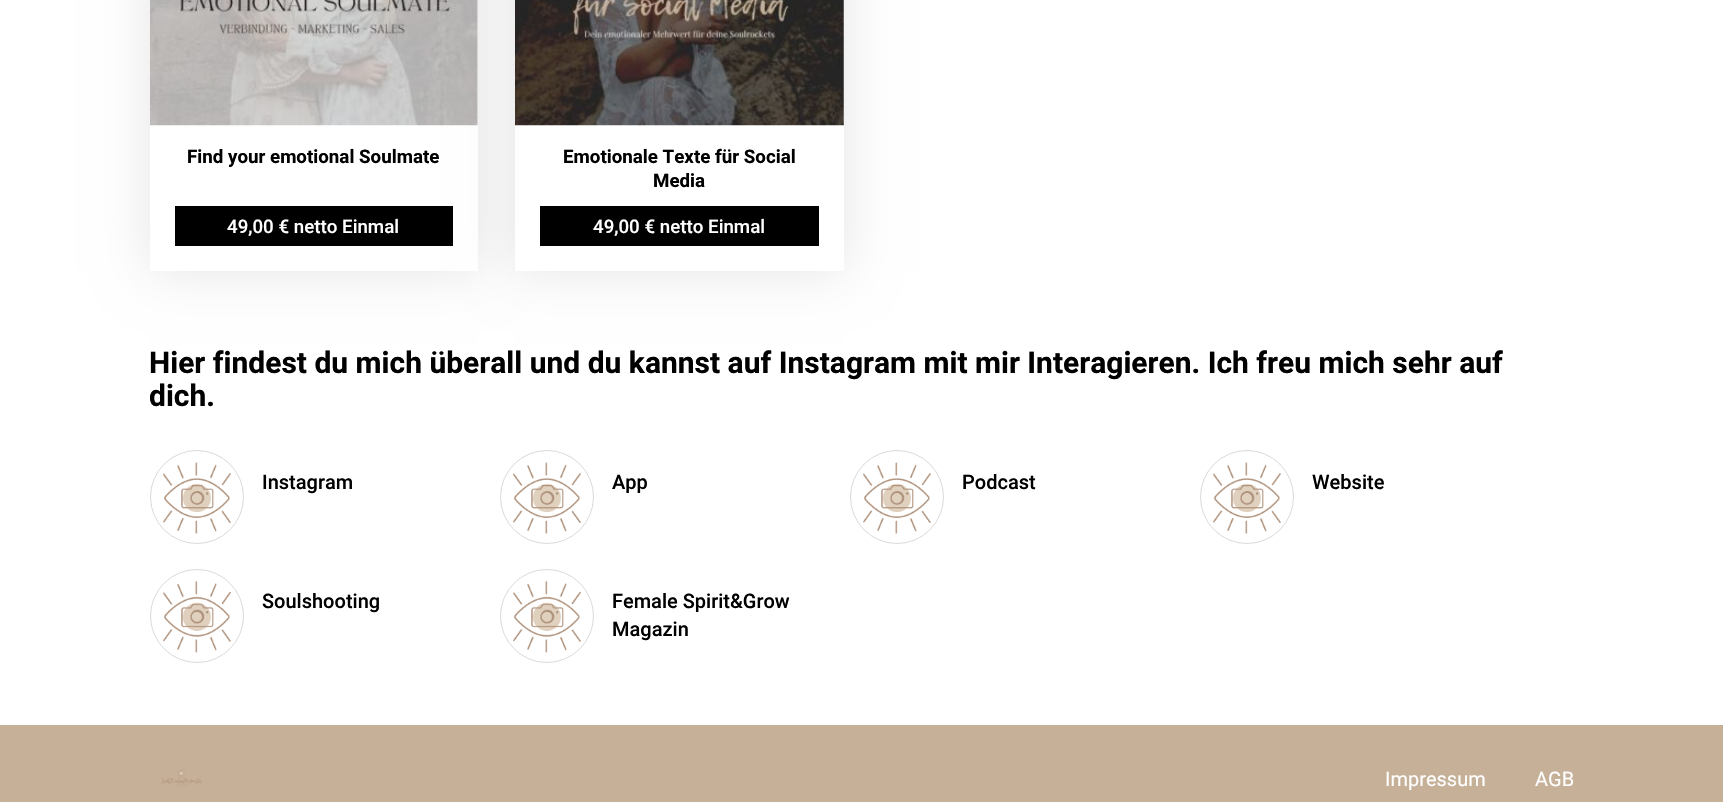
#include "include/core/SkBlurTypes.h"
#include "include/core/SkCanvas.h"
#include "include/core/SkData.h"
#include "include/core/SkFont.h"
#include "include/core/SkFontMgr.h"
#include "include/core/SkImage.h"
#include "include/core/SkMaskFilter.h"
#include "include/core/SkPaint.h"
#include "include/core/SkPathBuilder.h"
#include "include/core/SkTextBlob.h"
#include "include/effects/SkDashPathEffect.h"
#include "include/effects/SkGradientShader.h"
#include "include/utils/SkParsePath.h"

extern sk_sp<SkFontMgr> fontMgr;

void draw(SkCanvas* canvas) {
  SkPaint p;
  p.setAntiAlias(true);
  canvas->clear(SK_ColorWHITE);
  p.setColor(SkColorSetARGB(26, 0, 0, 0));
  p.setMaskFilter(SkMaskFilter::MakeBlur(kNormal_SkBlurStyle, 25));
  canvas->drawRect(SkRect::MakeLTRB(150, -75, 478, 271), p);
  p.setMaskFilter(nullptr);
  p.setColor(SK_ColorWHITE);
  canvas->drawRect(SkRect::MakeLTRB(150, 0, 478, 271), p);
  canvas->drawImageRect(SkImages::DeferredFromEncodedData(SkData::MakeFromFileName("images/1.png")), SkRect::MakeLTRB(150, 0, 478, 126), SkSamplingOptions());
  p.setColor(SK_ColorBLACK);
  canvas->drawRect(SkRect::MakeLTRB(175, 206, 453, 246), p);
  p.setColor(SkColorSetARGB(26, 0, 0, 0));
  p.setMaskFilter(SkMaskFilter::MakeBlur(kNormal_SkBlurStyle, 25));
  canvas->drawRect(SkRect::MakeLTRB(515, -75, 844, 271), p);
  p.setMaskFilter(nullptr);
  p.setColor(SK_ColorWHITE);
  canvas->drawRect(SkRect::MakeLTRB(515, 0, 844, 271), p);
  canvas->drawImageRect(SkImages::DeferredFromEncodedData(SkData::MakeFromFileName("images/2.png")), SkRect::MakeLTRB(515, 0, 844, 126), SkSamplingOptions());
  p.setColor(SK_ColorBLACK);
  canvas->drawRect(SkRect::MakeLTRB(540, 206, 819, 246), p);
  canvas->drawImageRect(SkImages::DeferredFromEncodedData(SkData::MakeFromFileName("images/3.png")), SkRect::MakeLTRB(163, 462, 231, 534), SkSamplingOptions());
  p.setStyle(SkPaint::kStroke_Style);
  p.setStrokeWidth(1);
  p.setColor(SkColorSetRGB(218, 218, 218));
  canvas->drawCircle(197, 497, 46.5f, p);
  canvas->drawImageRect(SkImages::DeferredFromEncodedData(SkData::MakeFromFileName("images/4.png")), SkRect::MakeLTRB(513, 462, 581, 534), SkSamplingOptions());
  canvas->drawCircle(547, 497, 46.5f, p);
  canvas->drawImageRect(SkImages::DeferredFromEncodedData(SkData::MakeFromFileName("images/5.png")), SkRect::MakeLTRB(863, 462, 931, 534), SkSamplingOptions());
  canvas->drawCircle(897, 497, 46.5f, p);
  canvas->drawImageRect(SkImages::DeferredFromEncodedData(SkData::MakeFromFileName("images/6.png")), SkRect::MakeLTRB(1213, 462, 1281, 534), SkSamplingOptions());
  canvas->drawCircle(1247, 497, 46.5f, p);
  canvas->drawImageRect(SkImages::DeferredFromEncodedData(SkData::MakeFromFileName("images/7.png")), SkRect::MakeLTRB(163, 581, 231, 653), SkSamplingOptions());
  canvas->drawCircle(197, 616, 46.5f, p);
  canvas->drawImageRect(SkImages::DeferredFromEncodedData(SkData::MakeFromFileName("images/8.png")), SkRect::MakeLTRB(513, 581, 581, 653), SkSamplingOptions());
  canvas->drawCircle(547, 616, 46.5f, p);
  p.setStyle(SkPaint::kFill_Style);
  p.setColor(SkColorSetRGB(199, 176, 152));
  canvas->drawRect(SkRect::MakeLTRB(0, 725, 1723, 802), p);
  canvas->drawImageRect(SkImages::DeferredFromEncodedData(SkData::MakeFromFileName("images/9.png")), SkRect::MakeLTRB(161, 769, 202, 786), SkSamplingOptions());
  SkFont font1(fontMgr->matchFamilyStyle("Roboto", SkFontStyle::Bold()), 18.75f);
  font1.setSubpixel(true);
  p.setColor(SK_ColorBLACK);
  canvas->drawString("Find your emotional Soulmate", 187, 163, font1, p);
  SkFont font2(fontMgr->matchFamilyStyle("Roboto", SkFontStyle(500, SkFontStyle::kNormal_Width, SkFontStyle::kUpright_Slant)), 18.75f);
  font2.setSubpixel(true);
  p.setColor(SK_ColorWHITE);
  canvas->drawString("49,00 € netto Einmal", 227, 233, font2, p);
  p.setColor(SK_ColorBLACK);
  canvas->drawString("Emotionale Texte für Social", 563, 163, font1, p);
  canvas->drawString("Media", 653, 187, font1, p);
  p.setColor(SK_ColorWHITE);
  canvas->drawString("49,00 € netto Einmal", 593, 233, font2, p);
  SkFont font3(fontMgr->matchFamilyStyle("Roboto", SkFontStyle::Bold()), 30);
  font3.setSubpixel(true);
  p.setColor(SK_ColorBLACK);
  canvas->drawString("Hier findest du mich überall und du kannst auf Instagram mit mir Interagieren. Ich freu mich sehr auf", 149, 373, font3, p);
  canvas->drawString("dich.", 149, 406, font3, p);
  SkFont font4(fontMgr->matchFamilyStyle("Roboto", SkFontStyle(500, SkFontStyle::kNormal_Width, SkFontStyle::kUpright_Slant)), 20);
  font4.setSubpixel(true);
  canvas->drawString("Instagram", 262, 489, font4, p);
  canvas->drawString("App", 612, 489, font4, p);
  canvas->drawString("Podcast", 962, 489, font4, p);
  canvas->drawString("Website", 1312, 489, font4, p);
  canvas->drawString("Soulshooting", 262, 608, font4, p);
  canvas->drawString("Female Spirit&Grow", 612, 608, font4, p);
  canvas->drawString("Magazin", 612, 636, font4, p);
  SkFont font5(fontMgr->matchFamilyStyle("Roboto", SkFontStyle::Normal()), 20);
  font5.setSubpixel(true);
  p.setColor(SK_ColorWHITE);
  canvas->drawString("Impressum", 1385, 786, font5, p);
  canvas->drawString("AGB", 1535, 786, font5, p);
}
